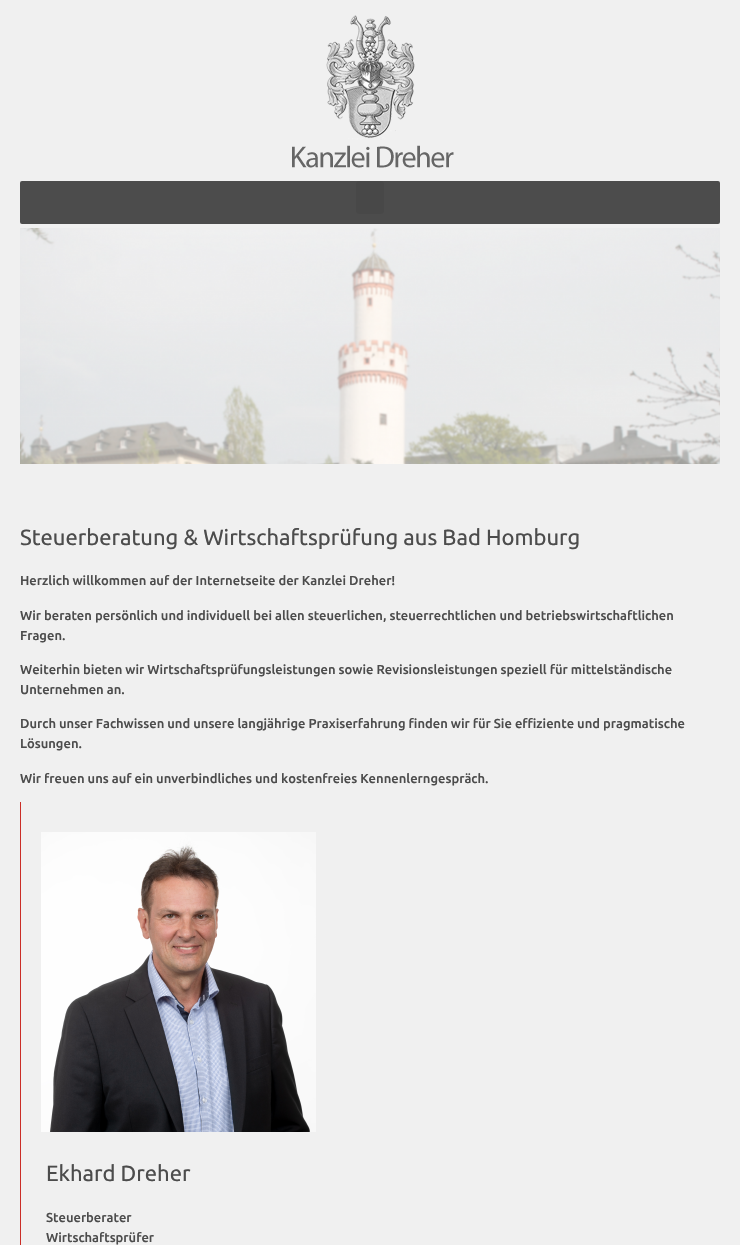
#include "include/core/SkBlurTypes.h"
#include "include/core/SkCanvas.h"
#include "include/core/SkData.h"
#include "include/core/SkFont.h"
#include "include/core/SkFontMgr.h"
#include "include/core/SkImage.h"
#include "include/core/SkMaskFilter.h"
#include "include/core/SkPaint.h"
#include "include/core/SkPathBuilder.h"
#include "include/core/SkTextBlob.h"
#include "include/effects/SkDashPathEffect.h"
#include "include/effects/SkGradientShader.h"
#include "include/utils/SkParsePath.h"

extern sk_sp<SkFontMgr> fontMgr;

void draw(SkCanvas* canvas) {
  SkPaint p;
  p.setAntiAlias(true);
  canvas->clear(SkColorSetRGB(240, 240, 240));
  canvas->drawImageRect(SkImages::DeferredFromEncodedData(SkData::MakeFromFileName("images/1.png")), SkRect::MakeLTRB(292, 15, 454, 168), SkSamplingOptions());
  p.setColor(SkColorSetRGB(76, 76, 76));
  canvas->drawRoundRect(SkRect::MakeLTRB(20, 181, 720, 224), 2, 2, p);
  p.setColor(SkColorSetRGB(72, 72, 72));
  canvas->drawRoundRect(SkRect::MakeLTRB(356, 181, 384, 214), 3, 3, p);
  canvas->drawImageRect(SkImages::DeferredFromEncodedData(SkData::MakeFromFileName("images/2.png")), SkRect::MakeLTRB(20, 228, 720, 464), SkSamplingOptions());
  p.setColor(SkColorSetRGB(203, 46, 39));
  canvas->drawRect(SkRect::MakeLTRB(20, 802, 21, 1245), p);
  canvas->drawImageRect(SkImages::DeferredFromEncodedData(SkData::MakeFromFileName("images/3.png")), SkRect::MakeLTRB(41, 832, 316, 1132), SkSamplingOptions());
  SkFont font1(fontMgr->matchFamilyStyle("Ubuntu", SkFontStyle::Normal()), 22);
  font1.setSubpixel(true);
  p.setColor(SkColorSetRGB(76, 76, 76));
  canvas->drawString("Steuerberatung & Wirtschaftsprüfung aus Bad Homburg", 20, 545, font1, p);
  SkFont font2(fontMgr->matchFamilyStyle("Ubuntu", SkFontStyle(500, SkFontStyle::kNormal_Width, SkFontStyle::kUpright_Slant)), 13);
  font2.setSubpixel(true);
  canvas->drawString("Herzlich willkommen auf der Internetseite der Kanzlei Dreher!", 20, 585, font2, p);
  canvas->drawString("Wir beraten persönlich und individuell bei allen steuerlichen, steuerrechtlichen und betriebswirtschaftlichen", 20, 620, font2, p);
  canvas->drawString("Fragen.", 20, 640, font2, p);
  canvas->drawString("Weiterhin bieten wir Wirtschaftsprüfungsleistungen sowie Revisionsleistungen speziell für mittelständische", 20, 674, font2, p);
  canvas->drawString("Unternehmen an.", 20, 694, font2, p);
  canvas->drawString("Durch unser Fachwissen und unsere langjährige Praxiserfahrung finden wir für Sie effiziente und pragmatische", 20, 728, font2, p);
  canvas->drawString("Lösungen.", 20, 748, font2, p);
  canvas->drawString("Wir freuen uns auf ein unverbindliches und kostenfreies Kennenlerngespräch.", 20, 783, font2, p);
  canvas->drawString("Ekhard Dreher", 46, 1181, font1, p);
  canvas->drawString("Steuerberater", 46, 1222, font2, p);
  canvas->drawString("Wirtschaftsprüfer", 46, 1242, font2, p);
}
